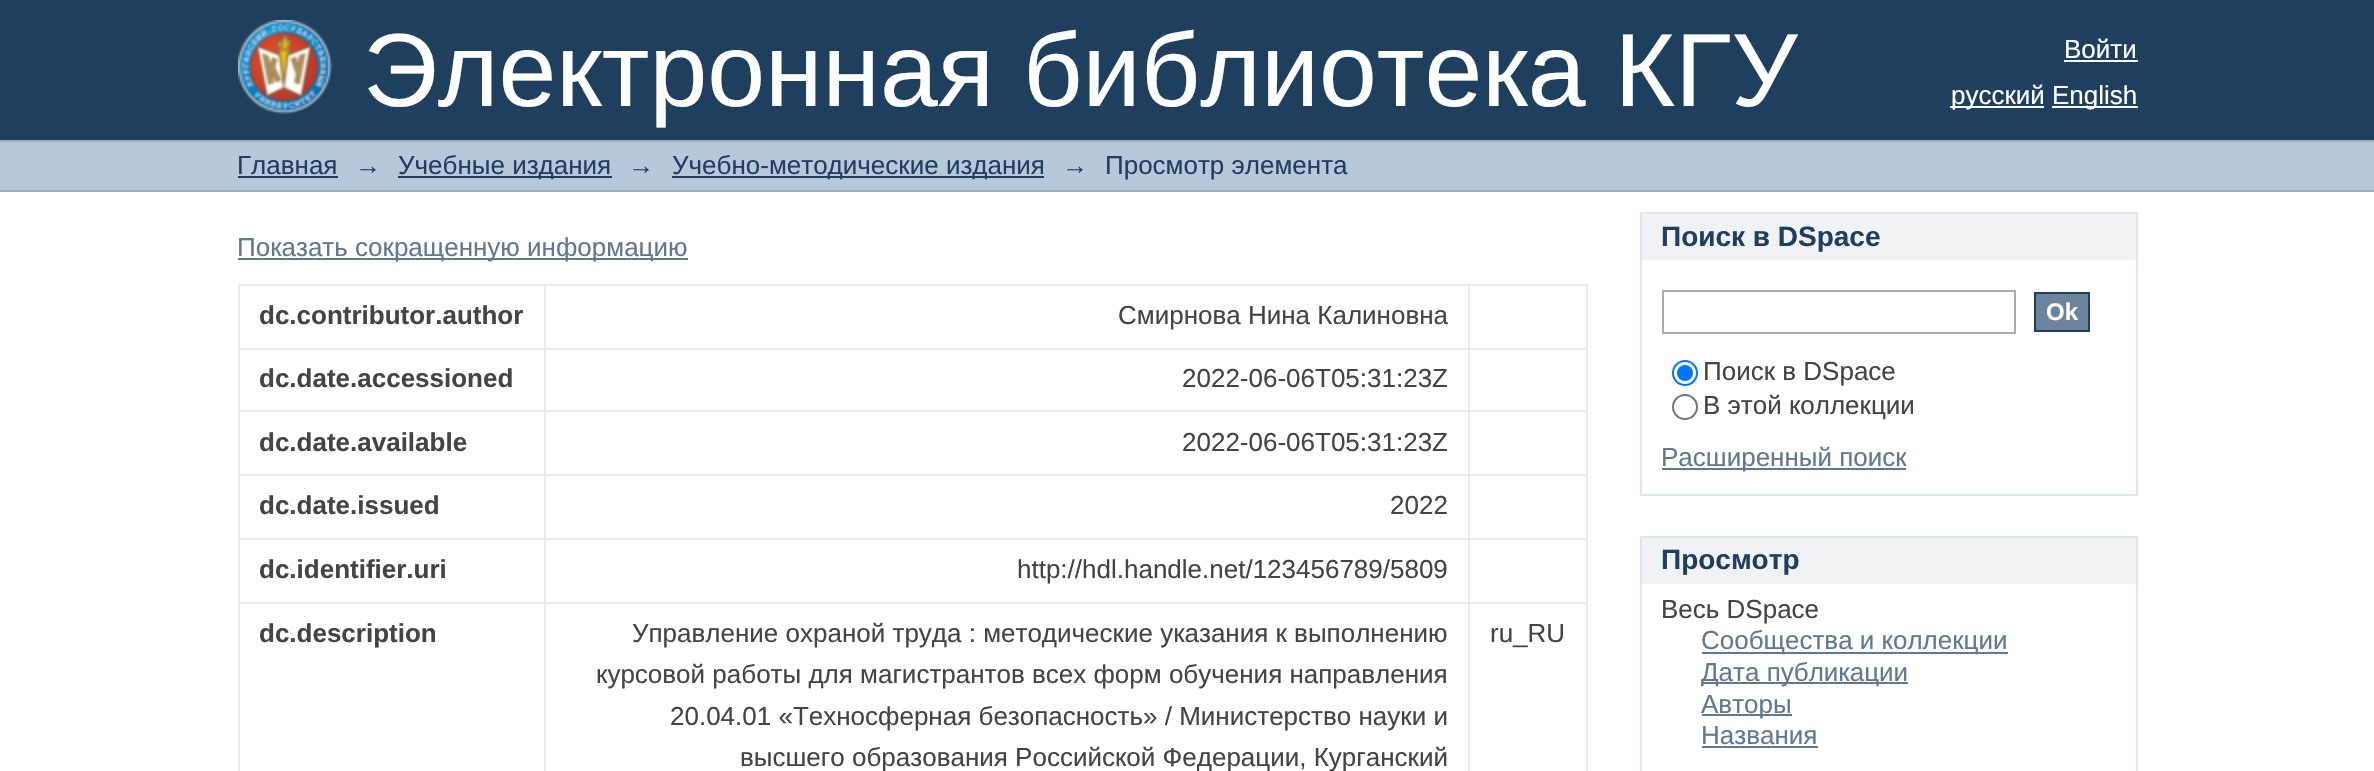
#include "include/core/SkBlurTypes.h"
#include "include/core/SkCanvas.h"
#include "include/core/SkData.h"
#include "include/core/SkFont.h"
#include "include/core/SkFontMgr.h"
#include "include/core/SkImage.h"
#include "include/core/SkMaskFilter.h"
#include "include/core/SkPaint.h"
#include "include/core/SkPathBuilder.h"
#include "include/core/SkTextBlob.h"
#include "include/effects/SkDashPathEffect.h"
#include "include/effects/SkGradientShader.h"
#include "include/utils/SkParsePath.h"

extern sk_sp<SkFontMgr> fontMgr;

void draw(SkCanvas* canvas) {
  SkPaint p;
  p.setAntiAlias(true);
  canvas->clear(SK_ColorWHITE);
  p.setColor(SkColorSetRGB(31, 63, 94));
  canvas->drawRect(SkRect::MakeLTRB(0, 0, 2374, 140), p);
  canvas->drawImageRect(SkImages::DeferredFromEncodedData(SkData::MakeFromFileName("images/1.png")), SkRect::MakeLTRB(238, 20, 334, 116), SkSamplingOptions());
  p.setColor(SK_ColorWHITE);
  canvas->drawRect(SkRect::MakeLTRB(2064, 60, 2138, 62), p);
  canvas->drawRect(SkRect::MakeLTRB(1950, 106, 2044, 108), p);
  canvas->drawRect(SkRect::MakeLTRB(2052, 106, 2138, 108), p);
  p.setColor(SkColorSetRGB(182, 200, 217));
  canvas->drawRect(SkRect::MakeLTRB(0, 142, 2374, 190), p);
  p.setColor(SkColorSetRGB(156, 172, 186));
  canvas->drawRect(SkRect::MakeLTRB(0, 140, 2374, 142), p);
  canvas->drawRect(SkRect::MakeLTRB(0, 190, 2374, 192), p);
  p.setColor(SkColorSetRGB(31, 63, 94));
  canvas->drawRect(SkRect::MakeLTRB(238, 176, 338, 178), p);
  canvas->drawRect(SkRect::MakeLTRB(398, 176, 612, 178), p);
  canvas->drawRect(SkRect::MakeLTRB(672, 176, 1044, 178), p);
  p.setColor(SkColorSetRGB(96, 120, 144));
  canvas->drawRect(SkRect::MakeLTRB(238, 258, 688, 260), p);
  p.setColor(SkColorSetRGB(235, 235, 235));
  canvas->drawRect(SkRect::MakeLTRB(238, 284, 1588, 286), p);
  canvas->drawRect(SkRect::MakeLTRB(238, 348, 1588, 350), p);
  canvas->drawRect(SkRect::MakeLTRB(238, 410, 1588, 412), p);
  canvas->drawRect(SkRect::MakeLTRB(238, 474, 1588, 476), p);
  canvas->drawRect(SkRect::MakeLTRB(238, 538, 1588, 540), p);
  canvas->drawRect(SkRect::MakeLTRB(238, 602, 1588, 604), p);
  canvas->drawRect(SkRect::MakeLTRB(1586, 602, 1588, 771), p);
  canvas->drawRect(SkRect::MakeLTRB(1586, 538, 1588, 604), p);
  canvas->drawRect(SkRect::MakeLTRB(1586, 474, 1588, 540), p);
  canvas->drawRect(SkRect::MakeLTRB(1586, 410, 1588, 476), p);
  canvas->drawRect(SkRect::MakeLTRB(1586, 348, 1588, 412), p);
  canvas->drawRect(SkRect::MakeLTRB(1586, 284, 1588, 350), p);
  canvas->drawRect(SkRect::MakeLTRB(238, 602, 240, 771), p);
  canvas->drawRect(SkRect::MakeLTRB(238, 538, 240, 604), p);
  canvas->drawRect(SkRect::MakeLTRB(238, 474, 240, 540), p);
  canvas->drawRect(SkRect::MakeLTRB(238, 410, 240, 476), p);
  canvas->drawRect(SkRect::MakeLTRB(238, 348, 240, 412), p);
  canvas->drawRect(SkRect::MakeLTRB(238, 284, 240, 350), p);
  canvas->drawRect(SkRect::MakeLTRB(544, 284, 546, 771), p);
  canvas->drawRect(SkRect::MakeLTRB(1468, 284, 1470, 771), p);
  p.setColor(SkColorSetRGB(240, 242, 245));
  canvas->drawRect(SkRect::MakeLTRB(1642, 214, 2136, 260), p);
  p.setColor(SkColorSetRGB(216, 232, 235));
  canvas->drawRect(SkRect::MakeLTRB(1640, 212, 2138, 214), p);
  canvas->drawRect(SkRect::MakeLTRB(2136, 212, 2138, 496), p);
  canvas->drawRect(SkRect::MakeLTRB(1640, 212, 1642, 260), p);
  canvas->drawRect(SkRect::MakeLTRB(1640, 494, 2138, 496), p);
  canvas->drawRect(SkRect::MakeLTRB(1640, 260, 1642, 496), p);
  p.setStyle(SkPaint::kStroke_Style);
  p.setStrokeWidth(2);
  p.setColor(SkColorSetRGB(170, 170, 170));
  canvas->drawRect(SkRect::MakeLTRB(1663, 291, 2015, 333), p);
  p.setStyle(SkPaint::kFill_Style);
  p.setColor(SkColorSetRGB(109, 133, 156));
  canvas->drawRect(SkRect::MakeLTRB(2035, 293, 2089, 331), p);
  p.setStyle(SkPaint::kStroke_Style);
  p.setColor(SkColorSetRGB(31, 63, 94));
  canvas->drawRect(SkRect::MakeLTRB(2035, 293, 2089, 331), p);
  p.setColor(SkColorSetRGB(0, 117, 255));
  canvas->drawCircle(1685, 373, 12, p);
  p.setStyle(SkPaint::kFill_Style);
  canvas->drawCircle(1685, 373, 8, p);
  p.setStyle(SkPaint::kStroke_Style);
  p.setColor(SkColorSetRGB(118, 118, 118));
  canvas->drawCircle(1685, 407, 12, p);
  p.setStyle(SkPaint::kFill_Style);
  p.setColor(SkColorSetRGB(96, 120, 144));
  canvas->drawRect(SkRect::MakeLTRB(1662, 468, 1906, 470), p);
  p.setColor(SkColorSetRGB(240, 242, 245));
  canvas->drawRect(SkRect::MakeLTRB(1642, 538, 2136, 584), p);
  p.setColor(SkColorSetRGB(216, 232, 235));
  canvas->drawRect(SkRect::MakeLTRB(1640, 536, 2138, 538), p);
  canvas->drawRect(SkRect::MakeLTRB(2136, 536, 2138, 771), p);
  canvas->drawRect(SkRect::MakeLTRB(1640, 536, 1642, 771), p);
  p.setColor(SkColorSetRGB(96, 120, 144));
  canvas->drawRect(SkRect::MakeLTRB(1702, 652, 2008, 654), p);
  canvas->drawRect(SkRect::MakeLTRB(1702, 682, 1908, 684), p);
  canvas->drawRect(SkRect::MakeLTRB(1702, 714, 1792, 716), p);
  canvas->drawRect(SkRect::MakeLTRB(1702, 746, 1818, 748), p);
  SkFont font1(fontMgr->matchFamilyStyle("Liberation Sans", SkFontStyle::Normal()), 104);
  font1.setSubpixel(true);
  p.setColor(SK_ColorWHITE);
  canvas->drawString("Электронная библиотека КГУ", 363, 106, font1, p);
  SkFont font2(fontMgr->matchFamilyStyle("Liberation Sans", SkFontStyle::Normal()), 26);
  font2.setSubpixel(true);
  canvas->drawString("Войти", 2064, 58, font2, p);
  canvas->drawString("русский", 1951, 104, font2, p);
  canvas->drawString("English", 2052, 104, font2, p);
  p.setColor(SkColorSetRGB(31, 63, 94));
  canvas->drawString("Главная", 237, 174, font2, p);
  canvas->drawString("→", 355, 174, font2, p);
  canvas->drawString("Учебные издания", 398, 174, font2, p);
  canvas->drawString("→", 628, 174, font2, p);
  canvas->drawString("Учебно-методические издания", 672, 174, font2, p);
  canvas->drawString("→", 1062, 174, font2, p);
  canvas->drawString("Просмотр элемента", 1105, 174, font2, p);
  p.setColor(SkColorSetRGB(96, 120, 144));
  canvas->drawString("Показать сокращенную информацию", 237, 256, font2, p);
  SkFont font3(fontMgr->matchFamilyStyle("Liberation Sans", SkFontStyle::Bold()), 26);
  font3.setSubpixel(true);
  p.setColor(SkColorSetRGB(68, 68, 68));
  canvas->drawString("dc.contributor.author", 259, 324, font3, p);
  canvas->drawString("Смирнова Нина Калиновна", 1118, 324, font2, p);
  canvas->drawString("dc.date.accessioned", 259, 387, font3, p);
  canvas->drawString("2022-06-06T05:31:23Z", 1182, 387, font2, p);
  canvas->drawString("dc.date.available", 259, 451, font3, p);
  canvas->drawString("2022-06-06T05:31:23Z", 1182, 451, font2, p);
  canvas->drawString("dc.date.issued", 259, 514, font3, p);
  canvas->drawString("2022", 1390, 514, font2, p);
  canvas->drawString("dc.identifier.uri", 259, 578, font3, p);
  canvas->drawString("http://hdl.handle.net/123456789/5809", 1017, 578, font2, p);
  canvas->drawString("dc.description", 259, 642, font3, p);
  canvas->drawString("Управление охраной труда : методические указания к выполнению", 632, 642, font2, p);
  canvas->drawString("курсовой работы для магистрантов всех форм обучения направления", 596, 683, font2, p);
  canvas->drawString("20.04.01 «Техносферная безопасность» / Министерство науки и", 670, 725, font2, p);
  canvas->drawString("высшего образования Российской Федерации, Курганский", 740, 766, font2, p);
  canvas->drawString("ru_RU", 1490, 642, font2, p);
  SkFont font4(fontMgr->matchFamilyStyle("Liberation Sans", SkFontStyle::Bold()), 28);
  font4.setSubpixel(true);
  p.setColor(SkColorSetRGB(31, 63, 94));
  canvas->drawString("Поиск в DSpace", 1661, 246, font4, p);
  SkFont font5(fontMgr->matchFamilyStyle("Liberation Sans", SkFontStyle::Bold()), 24);
  font5.setSubpixel(true);
  p.setColor(SK_ColorWHITE);
  canvas->drawString("Ok", 2046, 320, font5, p);
  p.setColor(SkColorSetRGB(68, 68, 68));
  canvas->drawString("Поиск в DSpace", 1703, 380, font2, p);
  canvas->drawString("В этой коллекции", 1703, 414, font2, p);
  p.setColor(SkColorSetRGB(96, 120, 144));
  canvas->drawString("Расширенный поиск", 1661, 466, font2, p);
  p.setColor(SkColorSetRGB(31, 63, 94));
  canvas->drawString("Просмотр", 1661, 569, font4, p);
  p.setColor(SkColorSetRGB(68, 68, 68));
  canvas->drawString("Весь DSpace", 1661, 618, font2, p);
  p.setColor(SkColorSetRGB(96, 120, 144));
  canvas->drawString("Сообщества и коллекции", 1701, 649, font2, p);
  canvas->drawString("Дата публикации", 1701, 681, font2, p);
  canvas->drawString("Авторы", 1701, 713, font2, p);
  canvas->drawString("Названия", 1701, 744, font2, p);
}
